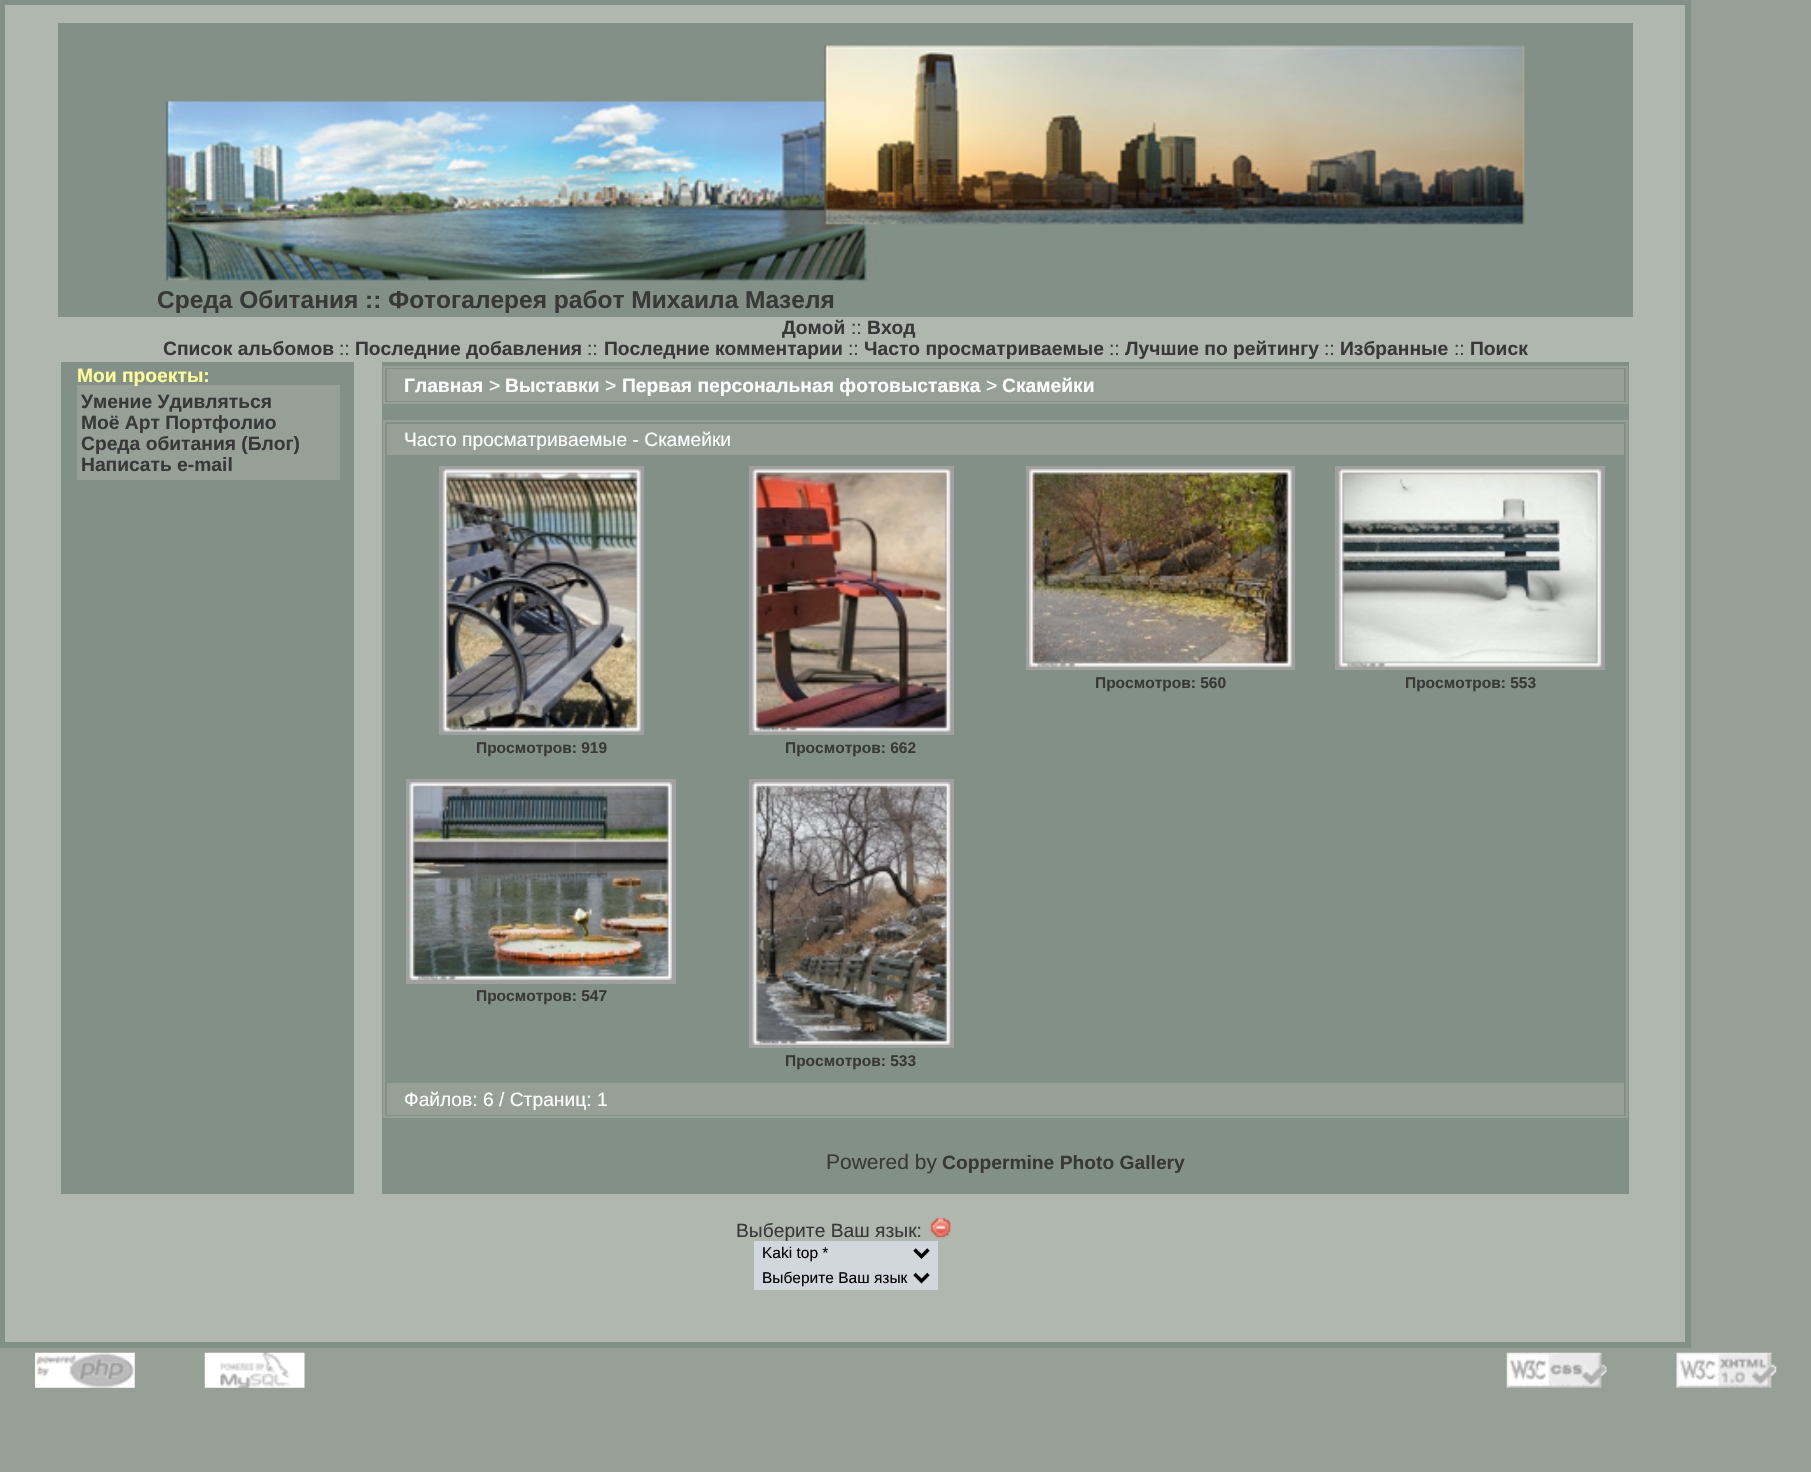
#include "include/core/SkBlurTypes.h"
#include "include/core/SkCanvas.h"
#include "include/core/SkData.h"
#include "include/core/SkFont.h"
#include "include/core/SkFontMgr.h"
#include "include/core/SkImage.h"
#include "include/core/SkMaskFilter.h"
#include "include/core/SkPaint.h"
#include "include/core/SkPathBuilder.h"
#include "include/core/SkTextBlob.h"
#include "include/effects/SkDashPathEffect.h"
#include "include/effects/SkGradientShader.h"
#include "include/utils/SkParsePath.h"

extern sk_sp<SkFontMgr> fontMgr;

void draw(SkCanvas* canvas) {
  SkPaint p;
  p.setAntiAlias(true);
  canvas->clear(SkColorSetRGB(150, 160, 150));
  p.setColor(SkColorSetRGB(131, 144, 135));
  canvas->drawRect(SkRect::MakeLTRB(0, 0, 1691, 1348), p);
  p.setColor(SkColorSetRGB(175, 183, 175));
  canvas->drawRect(SkRect::MakeLTRB(5, 5, 1685, 1342), p);
  p.setColor(SkColorSetRGB(131, 144, 135));
  canvas->drawRect(SkRect::MakeLTRB(58, 23, 1633, 317), p);
  canvas->drawImageRect(SkImages::DeferredFromEncodedData(SkData::MakeFromFileName("images/1.png")), SkRect::MakeLTRB(164, 44, 1525, 282), SkSamplingOptions());
  canvas->drawRect(SkRect::MakeLTRB(61, 362, 354, 1194), p);
  p.setColor(SkColorSetRGB(150, 160, 150));
  canvas->drawRect(SkRect::MakeLTRB(77, 385, 340, 480), p);
  p.setColor(SkColorSetRGB(131, 144, 135));
  canvas->drawRect(SkRect::MakeLTRB(382, 362, 1629, 1194), p);
  p.setStyle(SkPaint::kStroke_Style);
  p.setStrokeWidth(2);
  p.setColor(SkColorSetRGB(150, 160, 150));
  canvas->drawRect(SkRect::MakeLTRB(384, 367, 1627, 403), p);
  p.setStyle(SkPaint::kFill_Style);
  canvas->drawRect(SkRect::MakeLTRB(387, 369, 1624, 401), p);
  p.setStyle(SkPaint::kStroke_Style);
  canvas->drawRect(SkRect::MakeLTRB(384, 421, 1627, 1117), p);
  p.setStyle(SkPaint::kFill_Style);
  canvas->drawRect(SkRect::MakeLTRB(387, 424, 1624, 455), p);
  p.setStyle(SkPaint::kStroke_Style);
  p.setStrokeWidth(4);
  p.setColor(SkColorSetRGB(160, 160, 160));
  canvas->drawRect(SkRect::MakeLTRB(1028, 468, 1293, 668), p);
  canvas->drawImageRect(SkImages::DeferredFromEncodedData(SkData::MakeFromFileName("images/2.png")), SkRect::MakeLTRB(1029, 469, 1292, 667), SkSamplingOptions());
  canvas->drawRect(SkRect::MakeLTRB(1337, 468, 1603, 668), p);
  canvas->drawImageRect(SkImages::DeferredFromEncodedData(SkData::MakeFromFileName("images/3.png")), SkRect::MakeLTRB(1338, 469, 1602, 667), SkSamplingOptions());
  canvas->drawRect(SkRect::MakeLTRB(441, 468, 642, 733), p);
  canvas->drawImageRect(SkImages::DeferredFromEncodedData(SkData::MakeFromFileName("images/4.png")), SkRect::MakeLTRB(442, 469, 641, 732), SkSamplingOptions());
  canvas->drawRect(SkRect::MakeLTRB(751, 468, 952, 733), p);
  canvas->drawImageRect(SkImages::DeferredFromEncodedData(SkData::MakeFromFileName("images/5.png")), SkRect::MakeLTRB(752, 469, 951, 732), SkSamplingOptions());
  canvas->drawRect(SkRect::MakeLTRB(408, 781, 674, 982), p);
  canvas->drawImageRect(SkImages::DeferredFromEncodedData(SkData::MakeFromFileName("images/6.png")), SkRect::MakeLTRB(409, 782, 672, 980), SkSamplingOptions());
  canvas->drawRect(SkRect::MakeLTRB(751, 781, 952, 1046), p);
  canvas->drawImageRect(SkImages::DeferredFromEncodedData(SkData::MakeFromFileName("images/7.png")), SkRect::MakeLTRB(752, 782, 951, 1045), SkSamplingOptions());
  p.setStyle(SkPaint::kFill_Style);
  p.setColor(SkColorSetRGB(150, 160, 150));
  canvas->drawRect(SkRect::MakeLTRB(387, 1083, 1624, 1115), p);
  canvas->drawImageRect(SkImages::DeferredFromEncodedData(SkData::MakeFromFileName("images/8.png")), SkRect::MakeLTRB(930, 1218, 951, 1238), SkSamplingOptions());
  p.setColor(SkColorSetRGB(209, 215, 220));
  canvas->drawRect(SkRect::MakeLTRB(754, 1241, 938, 1290), p);
  p.setStyle(SkPaint::kStroke_Style);
  p.setStrokeWidth(3.5f);
  p.setColor(SK_ColorBLACK);
  canvas->drawPath(SkPathBuilder().moveTo(914.5f, 1249.5f).lineTo(921.5f, 1256.5f).lineTo(928.5f, 1249.5f).detach(), p);
  canvas->drawPath(SkPathBuilder().moveTo(914.5f, 1274).lineTo(921.5f, 1281).lineTo(928.5f, 1274).detach(), p);
  canvas->drawImageRect(SkImages::DeferredFromEncodedData(SkData::MakeFromFileName("images/9.png")), SkRect::MakeLTRB(35, 1352, 135, 1388), SkSamplingOptions());
  canvas->drawImageRect(SkImages::DeferredFromEncodedData(SkData::MakeFromFileName("images/10.png")), SkRect::MakeLTRB(204, 1352, 305, 1388), SkSamplingOptions());
  canvas->drawImageRect(SkImages::DeferredFromEncodedData(SkData::MakeFromFileName("images/11.png")), SkRect::MakeLTRB(1506, 1352, 1607, 1388), SkSamplingOptions());
  canvas->drawImageRect(SkImages::DeferredFromEncodedData(SkData::MakeFromFileName("images/12.png")), SkRect::MakeLTRB(1676, 1352, 1777, 1388), SkSamplingOptions());
  SkFont font1(fontMgr->matchFamilyStyle("Liberation Sans", SkFontStyle::Bold()), 24.5f);
  font1.setSubpixel(true);
  p.setStyle(SkPaint::kFill_Style);
  p.setColor(SkColorSetRGB(56, 56, 56));
  canvas->drawString("Среда Обитания :: Фотогалерея работ Михаила Мазеля", 157, 308, font1, p);
  SkFont font2(fontMgr->matchFamilyStyle("Liberation Sans", SkFontStyle::Bold()), 19.25f);
  font2.setSubpixel(true);
  canvas->drawString("Домой", 782, 334, font2, p);
  SkFont font3(fontMgr->matchFamilyStyle("Liberation Sans", SkFontStyle::Normal()), 19.25f);
  font3.setSubpixel(true);
  canvas->drawString("::", 851, 334, font3, p);
  canvas->drawString("Вход", 867, 334, font2, p);
  canvas->drawString("Список альбомов", 163, 355, font2, p);
  canvas->drawString("::", 339, 355, font3, p);
  canvas->drawString("Последние добавления", 355, 355, font2, p);
  canvas->drawString("::", 587, 355, font3, p);
  canvas->drawString("Последние комментарии", 604, 355, font2, p);
  canvas->drawString("::", 848, 355, font3, p);
  canvas->drawString("Часто просматриваемые", 864, 355, font2, p);
  canvas->drawString("::", 1109, 355, font3, p);
  canvas->drawString("Лучшие по рейтингу", 1125, 355, font2, p);
  canvas->drawString("::", 1324, 355, font3, p);
  canvas->drawString("Избранные", 1340, 355, font2, p);
  canvas->drawString("::", 1454, 355, font3, p);
  canvas->drawString("Поиск", 1470, 355, font2, p);
  p.setColor(SkColorSetRGB(255, 255, 153));
  canvas->drawString("Мои проекты:", 77, 382, font2, p);
  p.setColor(SkColorSetRGB(56, 56, 56));
  canvas->drawString("Умение Удивляться", 81, 408, font2, p);
  canvas->drawString("Моё Арт Портфолио", 81, 429, font2, p);
  canvas->drawString("Среда обитания (Блог)", 81, 450, font2, p);
  canvas->drawString("Написать e-mail", 81, 471, font2, p);
  p.setColor(SK_ColorWHITE);
  canvas->drawString("Главная", 404, 392, font2, p);
  canvas->drawString(">", 489, 392, font3, p);
  canvas->drawString("Выставки", 505, 392, font2, p);
  canvas->drawString(">", 605, 392, font3, p);
  canvas->drawString("Первая персональная фотовыставка", 622, 392, font2, p);
  canvas->drawString(">", 986, 392, font3, p);
  canvas->drawString("Скамейки", 1002, 392, font2, p);
  canvas->drawString("Часто просматриваемые - Скамейки", 404, 446, font3, p);
  SkFont font4(fontMgr->matchFamilyStyle("Liberation Sans", SkFontStyle::Bold()), 15.5f);
  font4.setSubpixel(true);
  p.setColor(SkColorSetRGB(56, 56, 56));
  canvas->drawString("Просмотров: 560", 1095, 688, font4, p);
  canvas->drawString("Просмотров: 553", 1405, 688, font4, p);
  canvas->drawString("Просмотров: 919", 476, 753, font4, p);
  canvas->drawString("Просмотров: 662", 785, 753, font4, p);
  canvas->drawString("Просмотров: 547", 476, 1001, font4, p);
  canvas->drawString("Просмотров: 533", 785, 1066, font4, p);
  p.setColor(SK_ColorWHITE);
  canvas->drawString("Файлов: 6 / Страниц: 1", 404, 1106, font3, p);
  SkFont font5(fontMgr->matchFamilyStyle("Liberation Sans", SkFontStyle::Normal()), 21);
  font5.setSubpixel(true);
  p.setColor(SkColorSetRGB(56, 56, 56));
  canvas->drawString("Powered by", 826, 1169, font5, p);
  canvas->drawString("Coppermine Photo Gallery", 942, 1169, font2, p);
  canvas->drawString("Выберите Ваш язык:", 736, 1237, font3, p);
  SkFont font6(fontMgr->matchFamilyStyle("Liberation Sans", SkFontStyle::Normal()), 15.5f);
  font6.setSubpixel(true);
  p.setColor(SK_ColorBLACK);
  canvas->drawString("Kaki top *", 762, 1258, font6, p);
  canvas->drawString("Выберите Ваш язык", 762, 1283, font6, p);
}
